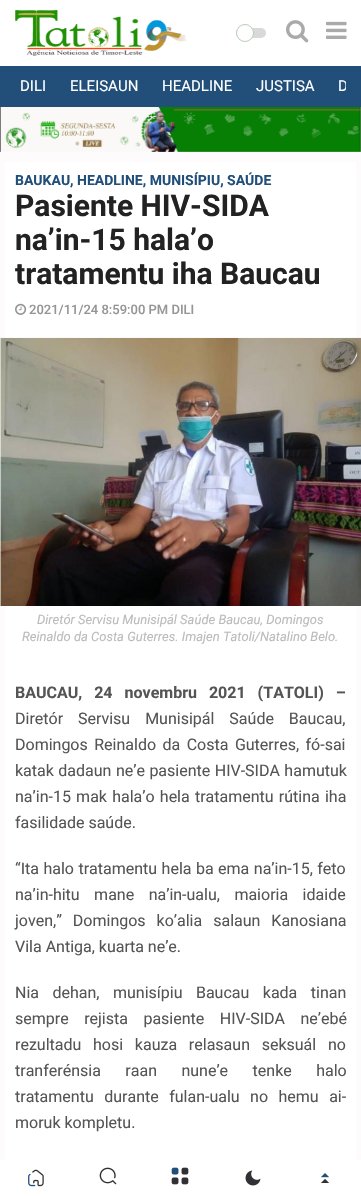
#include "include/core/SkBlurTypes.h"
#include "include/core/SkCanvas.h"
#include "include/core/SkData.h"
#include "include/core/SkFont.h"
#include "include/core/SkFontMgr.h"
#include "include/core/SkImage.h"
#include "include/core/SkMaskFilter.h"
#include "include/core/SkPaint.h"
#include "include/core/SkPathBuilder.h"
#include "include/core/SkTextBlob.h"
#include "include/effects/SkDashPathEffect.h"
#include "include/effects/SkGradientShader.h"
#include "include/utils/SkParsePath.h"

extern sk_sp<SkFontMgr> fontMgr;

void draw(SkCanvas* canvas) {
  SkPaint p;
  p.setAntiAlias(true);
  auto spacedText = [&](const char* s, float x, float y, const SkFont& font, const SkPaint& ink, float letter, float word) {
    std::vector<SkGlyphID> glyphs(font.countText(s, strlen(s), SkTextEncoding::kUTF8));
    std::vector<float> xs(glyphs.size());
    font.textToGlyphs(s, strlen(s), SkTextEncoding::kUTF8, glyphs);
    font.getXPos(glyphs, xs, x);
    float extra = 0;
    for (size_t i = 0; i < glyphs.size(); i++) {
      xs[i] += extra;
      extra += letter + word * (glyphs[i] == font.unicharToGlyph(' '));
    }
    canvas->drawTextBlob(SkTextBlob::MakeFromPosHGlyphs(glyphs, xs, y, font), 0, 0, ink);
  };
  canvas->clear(SkColorSetRGB(253, 251, 251));
  p.setColor(SK_ColorWHITE);
  canvas->drawRect(SkRect::MakeLTRB(0, 0, 361, 66), p);
  canvas->drawImageRect(SkImages::DeferredFromEncodedData(SkData::MakeFromFileName("images/1.png")), SkRect::MakeLTRB(15, 10, 187, 56), SkSamplingOptions());
  p.setColor(SkColorSetRGB(217, 217, 217));
  canvas->drawRoundRect(SkRect::MakeLTRB(236, 28, 266, 38), 5, 5, p);
  p.setColor(SK_ColorWHITE);
  canvas->drawCircle(245, 33, 9, p);
  p.setStyle(SkPaint::kStroke_Style);
  p.setStrokeWidth(1);
  p.setColor(SkColorSetARGB(87, 44, 105, 43));
  canvas->drawCircle(245, 33, 8.5f, p);
  canvas->drawImageRect(SkImages::DeferredFromEncodedData(SkData::MakeFromFileName("images/2.png")), SkRect::MakeLTRB(286, 20, 309, 43), SkSamplingOptions());
  canvas->drawImageRect(SkImages::DeferredFromEncodedData(SkData::MakeFromFileName("images/3.png")), SkRect::MakeLTRB(326, 21, 347, 39), SkSamplingOptions());
  p.setStyle(SkPaint::kFill_Style);
  p.setColor(SkColorSetRGB(34, 79, 122));
  canvas->drawRect(SkRect::MakeLTRB(0, 66, 361, 107), p);
  canvas->drawImageRect(SkImages::DeferredFromEncodedData(SkData::MakeFromFileName("images/4.png")), SkRect::MakeLTRB(0, 107, 361, 152), SkSamplingOptions());
  p.setColor(SK_ColorWHITE);
  canvas->drawRect(SkRect::MakeLTRB(5, 162, 356, 1160), p);
  canvas->drawImageRect(SkImages::DeferredFromEncodedData(SkData::MakeFromFileName("images/5.png")), SkRect::MakeLTRB(15, 303, 27, 315), SkSamplingOptions());
  canvas->drawImageRect(SkImages::DeferredFromEncodedData(SkData::MakeFromFileName("images/6.png")), SkRect::MakeLTRB(0, 337, 361, 606), SkSamplingOptions());
  canvas->drawRect(SkRect::MakeLTRB(0, 1160, 361, 1196), p);
  canvas->drawImageRect(SkImages::DeferredFromEncodedData(SkData::MakeFromFileName("images/7.png")), SkRect::MakeLTRB(28, 1169, 44, 1187), SkSamplingOptions());
  canvas->drawImageRect(SkImages::DeferredFromEncodedData(SkData::MakeFromFileName("images/8.png")), SkRect::MakeLTRB(99, 1167, 117, 1185), SkSamplingOptions());
  canvas->drawImageRect(SkImages::DeferredFromEncodedData(SkData::MakeFromFileName("images/9.png")), SkRect::MakeLTRB(171, 1167, 189, 1185), SkSamplingOptions());
  canvas->drawImageRect(SkImages::DeferredFromEncodedData(SkData::MakeFromFileName("images/10.png")), SkRect::MakeLTRB(245, 1170, 261, 1186), SkSamplingOptions());
  canvas->drawImageRect(SkImages::DeferredFromEncodedData(SkData::MakeFromFileName("images/11.png")), SkRect::MakeLTRB(321, 1173, 329, 1183), SkSamplingOptions());
  SkFont font1(fontMgr->matchFamilyStyle("Roboto", SkFontStyle::Normal()), 15);
  font1.setSubpixel(true);
  canvas->drawString("DILI", 20, 91, font1, p);
  canvas->drawString("ELEISAUN", 70, 91, font1, p);
  canvas->drawString("HEADLINE", 162, 91, font1, p);
  canvas->drawString("JUSTISA", 256, 91, font1, p);
  canvas->save();
  canvas->clipRect(SkRect::MakeLTRB(15, 66, 346, 107));
  canvas->drawString("D", 338, 91, font1, p);
  canvas->restore();
  SkFont font2(fontMgr->matchFamilyStyle("Roboto", SkFontStyle::Bold()), 14);
  font2.setSubpixel(true);
  p.setColor(SkColorSetRGB(34, 79, 122));
  canvas->drawString("BAUKAU, HEADLINE, MUNISÍPIU, SAÚDE", 15, 185, font2, p);
  SkFont font3(fontMgr->matchFamilyStyle("Roboto", SkFontStyle::Bold()), 30);
  font3.setSubpixel(true);
  p.setColor(SkColorSetRGB(34, 34, 34));
  canvas->drawString("Pasiente HIV-SIDA", 15, 216, font3, p);
  canvas->drawString("na’in-15 hala’o", 15, 250, font3, p);
  canvas->drawString("tratamentu iha Baucau", 15, 284, font3, p);
  SkFont font4(fontMgr->matchFamilyStyle("Roboto", SkFontStyle(500, SkFontStyle::kNormal_Width, SkFontStyle::kUpright_Slant)), 13);
  font4.setSubpixel(true);
  p.setColor(SkColorSetRGB(149, 149, 149));
  canvas->drawString("2021/11/24 8:59:00 PM DILI", 29, 314, font4, p);
  SkFont font5(fontMgr->matchFamilyStyle("Roboto", SkFontStyle::Italic()), 13);
  font5.setSubpixel(true);
  p.setColor(SkColorSetRGB(187, 187, 187));
  canvas->drawString("Diretór Servisu Munisipál Saúde Baucau, Domingos", 37, 624, font5, p);
  canvas->drawString("Reinaldo da Costa Guterres. Imajen Tatoli/Natalino Belo.", 22, 641, font5, p);
  SkFont font6(fontMgr->matchFamilyStyle("Roboto", SkFontStyle::Bold()), 16);
  font6.setSubpixel(true);
  p.setColor(SkColorSetRGB(85, 85, 85));
  spacedText("BAUCAU, 24 novembru 2021 (TATOLI) –", 15, 698, font6, p, 0, 8);
  SkFont font7(fontMgr->matchFamilyStyle("Roboto", SkFontStyle::Normal()), 16);
  font7.setSubpixel(true);
  spacedText("Diretór Servisu Munisipál Saúde Baucau,", 15, 724, font7, p, 0, 11);
  spacedText("Domingos Reinaldo da Costa Guterres, fó-sai", 15, 750, font7, p, 0, 2.5f);
  spacedText("katak dadaun ne’e pasiente HIV-SIDA hamutuk", 15, 776, font7, p, 0, 0.5f);
  spacedText("na’in-15 mak hala’o hela tratamentu rútina iha", 15, 802, font7, p, 0, 1.25f);
  canvas->drawString("fasilidade saúde.", 15, 828, font7, p);
  spacedText("“Ita halo tratamentu hela ba ema na’in-15, feto", 15, 874, font7, p, 0, 0.5f);
  spacedText("na’in-hitu mane na’in-ualu, maioria idaide", 15, 900, font7, p, 0, 10.5f);
  spacedText("joven,” Domingos ko’alia salaun Kanosiana", 15, 926, font7, p, 0, 7);
  canvas->drawString("Vila Antiga, kuarta ne’e.", 15, 952, font7, p);
  spacedText("Nia dehan, munisípiu Baucau kada tinan", 15, 998, font7, p, 0, 9.5f);
  spacedText("sempre rejista pasiente HIV-SIDA ne’ebé", 15, 1024, font7, p, 0, 11.5f);
  spacedText("rezultadu hosi kauza relasaun seksuál no", 15, 1050, font7, p, 0, 7.75f);
  spacedText("tranferénsia raan nune’e tenke halo", 15, 1076, font7, p, 0, 20.5f);
  spacedText("tratamentu durante fulan-ualu no hemu ai-", 15, 1102, font7, p, 0, 6.5f);
  canvas->drawString("moruk kompletu.", 15, 1128, font7, p);
}
